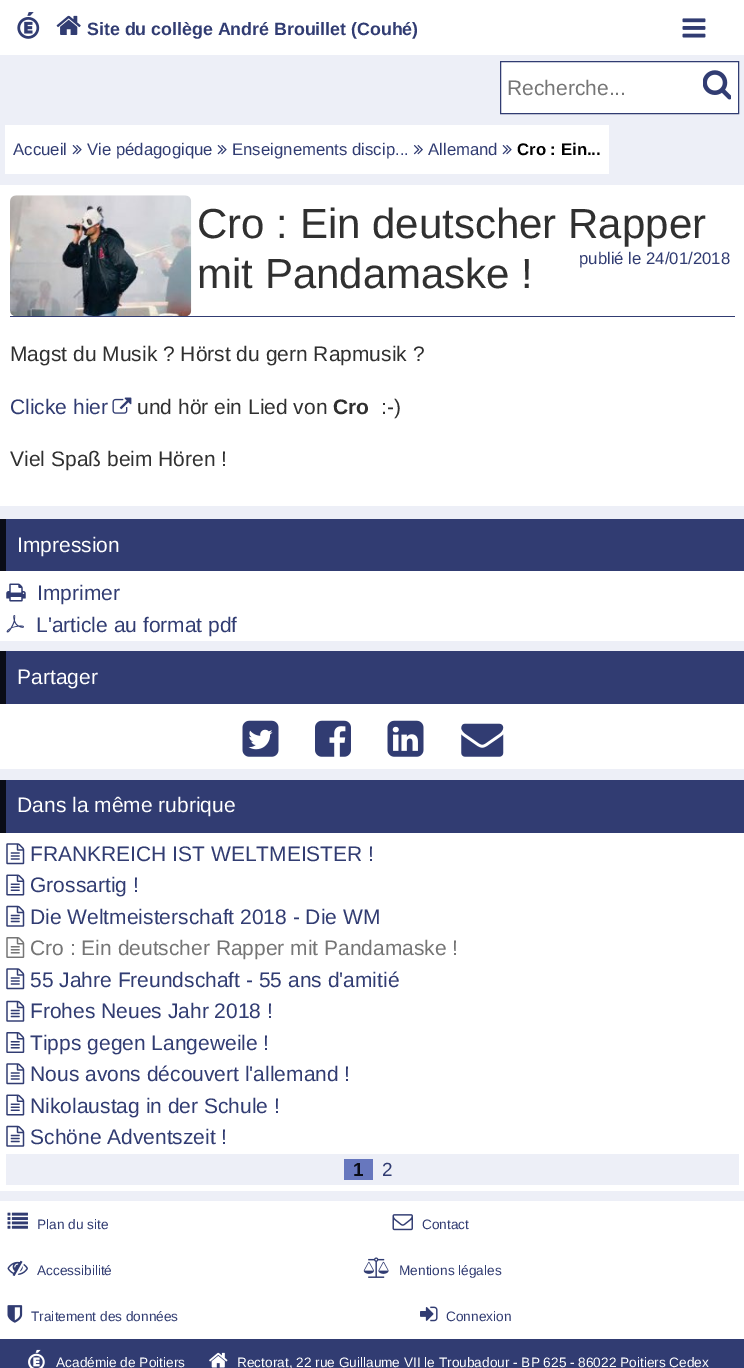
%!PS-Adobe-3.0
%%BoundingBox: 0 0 744 1368
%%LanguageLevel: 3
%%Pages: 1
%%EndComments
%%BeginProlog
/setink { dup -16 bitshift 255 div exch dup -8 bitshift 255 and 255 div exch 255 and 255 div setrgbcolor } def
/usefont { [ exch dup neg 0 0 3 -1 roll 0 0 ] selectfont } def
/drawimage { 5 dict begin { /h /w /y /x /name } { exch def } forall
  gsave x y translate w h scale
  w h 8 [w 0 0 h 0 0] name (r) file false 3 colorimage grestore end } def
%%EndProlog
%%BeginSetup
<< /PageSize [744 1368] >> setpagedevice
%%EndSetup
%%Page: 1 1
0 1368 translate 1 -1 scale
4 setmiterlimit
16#EDEFF7 setink
0 0 744 1368 rectfill
16#FFFFFF setink
0 0 744 55 rectfill
(img1.raw) 17 12 23 27 drawimage
(img2.raw) 56 15 25 20 drawimage
/LiberationSans-Bold 17.8 usefont
16#313C72 setink
87 35 moveto (Site du collège André Brouillet \(Couhé\)) show
(img3.raw) 682 18 24 20 drawimage
16#FFFFFF setink
500.5 61.5 moveto 738.5 61.5 lineto 738.5 113.5 lineto 500.5 113.5 lineto closepath gsave fill grestore
16#313C72 setink
stroke
/LiberationSans-Regular 21 usefont
16#757575 setink
507 95 moveto (Recherche...) show
(img4.raw) 703 70 28 30 drawimage
16#FFFFFF setink
5 125 604 49 rectfill
/LiberationSans-Regular 16.75 usefont
16#313C72 setink
13 155 moveto (Accueil) show
(img5.raw) 72 145 10 10 drawimage
87 155 moveto (Vie pédagogique) show
(img5.raw) 217 145 10 10 drawimage
232 155 moveto (Enseignements discip...) show
(img6.raw) 413 145 10 10 drawimage
428 155 moveto (Allemand) show
(img5.raw) 502 145 10 10 drawimage
/LiberationSans-Bold 16.75 usefont
16#000000 setink
517 155 moveto (Cro : Ein...) show
16#FFFFFF setink
0 185 744 321 rectfill
(img7.raw) 10 195 182 121 drawimage
/LiberationSans-Regular 42 usefont
16#303030 setink
197 238 moveto (Cro : Ein deutscher Rapper) show
197 288 moveto (mit Pandamaske !) show
/LiberationSans-Regular 16.75 usefont
16#313C72 setink
579 264 moveto (publié le 24/01/2018) show
10 316 725 1 rectfill
/LiberationSans-Regular 21 usefont
16#303030 setink
10 361 moveto (Magst du Musik ? Hörst du gern Rapmusik ?) show
16#313C72 setink
10 414 moveto (Clicke hier) show
(img8.raw) 112 397 20 17 drawimage
16#303030 setink
137 414 moveto (und hör ein Lied von) show
/LiberationSans-Bold 21 usefont
333 414 moveto (Cro) show
/LiberationSans-Regular 21 usefont
381 414 moveto (:-\)) show
10 466 moveto (Viel Spaß beim Hören !) show
[
    [0 571 744 70 16#FFFFFF]
    [6 519 738 52 16#313C72]
    [0 519 6 52 16#0A0C17]
] { aload pop setink rectfill } forall
16#FFFFFF setink
17 552 moveto (Impression) show
(img9.raw) 6 583 20 19 drawimage
16#313C72 setink
37 600 moveto (Imprimer) show
(img10.raw) 6 615 18 18 drawimage
36 632 moveto (L'article au format pdf) show
[
    [0 704 744 65 16#FFFFFF]
    [6 651 738 53 16#313C72]
    [0 651 6 53 16#0A0C17]
] { aload pop setink rectfill } forall
16#FFFFFF setink
17 684 moveto (Partager) show
(img11.raw) 242 720 37 37 drawimage
(img12.raw) 315 720 36 37 drawimage
(img13.raw) 387 720 37 37 drawimage
(img14.raw) 461 723 43 34 drawimage
[
    [0 833 744 358 16#FFFFFF]
    [6 780 738 53 16#313C72]
    [0 780 6 53 16#0A0C17]
] { aload pop setink rectfill } forall
16#FFFFFF setink
17 812 moveto (Dans la même rubrique) show
(img15.raw) 6 843 19 22 drawimage
16#313C72 setink
30 861 moveto (FRANKREICH IST WELTMEISTER !) show
(img16.raw) 6 874 19 22 drawimage
30 892 moveto (Grossartig !) show
(img17.raw) 6 905 19 22 drawimage
30 924 moveto (Die Weltmeisterschaft 2018 - Die WM) show
(img18.raw) 6 937 19 21 drawimage
16#757575 setink
30 955 moveto (Cro : Ein deutscher Rapper mit Pandamaske !) show
(img15.raw) 6 968 19 22 drawimage
16#313C72 setink
30 987 moveto (55 Jahre Freundschaft - 55 ans d'amitié) show
(img17.raw) 6 1000 19 22 drawimage
30 1018 moveto (Frohes Neues Jahr 2018 !) show
(img19.raw) 6 1032 19 21 drawimage
30 1050 moveto (Tipps gegen Langeweile !) show
(img15.raw) 6 1063 19 22 drawimage
30 1081 moveto (Nous avons découvert l'allemand !) show
(img16.raw) 6 1094 19 22 drawimage
30 1113 moveto (Nikolaustag in der Schule !) show
(img17.raw) 6 1125 19 22 drawimage
30 1144 moveto (Schöne Adventszeit !) show
16#EDEFF7 setink
6 1154 733 31 rectfill
16#6777BE setink
344 1159 29 21 rectfill
/LiberationSans-Bold 19 usefont
16#0A0C17 setink
353 1176 moveto (1) show
/LiberationSans-Regular 19 usefont
16#313C72 setink
382 1176 moveto (2) show
16#FFFFFF setink
0 1201 744 138 rectfill
(img20.raw) 7 1212 21 17 drawimage
/LiberationSans-Regular 13.65 usefont
16#313C72 setink
37 1229 moveto (Plan du site) show
(img21.raw) 392 1214 21 17 drawimage
422 1229 moveto (Contact) show
(img22.raw) 7 1260 21 16 drawimage
37 1275 moveto (Accessibilité) show
(img23.raw) 363 1257 26 21 drawimage
399 1275 moveto (Mentions légales) show
(img24.raw) 7 1305 16 18 drawimage
31 1321 moveto (Traitement des données) show
(img25.raw) 420 1306 18 16 drawimage
446 1321 moveto (Connexion) show
0 1339 744 29 rectfill
(img26.raw) 28 1349 17 19 drawimage
16#FFFFFF setink
56 1367 moveto (Académie de Poitiers) show
(img27.raw) 209 1352 19 16 drawimage
237 1367 moveto (Rectorat, 22 rue Guillaume VII le Troubadour - BP 625 - 86022 Poitiers Cedex) show
showpage
%%EOF
